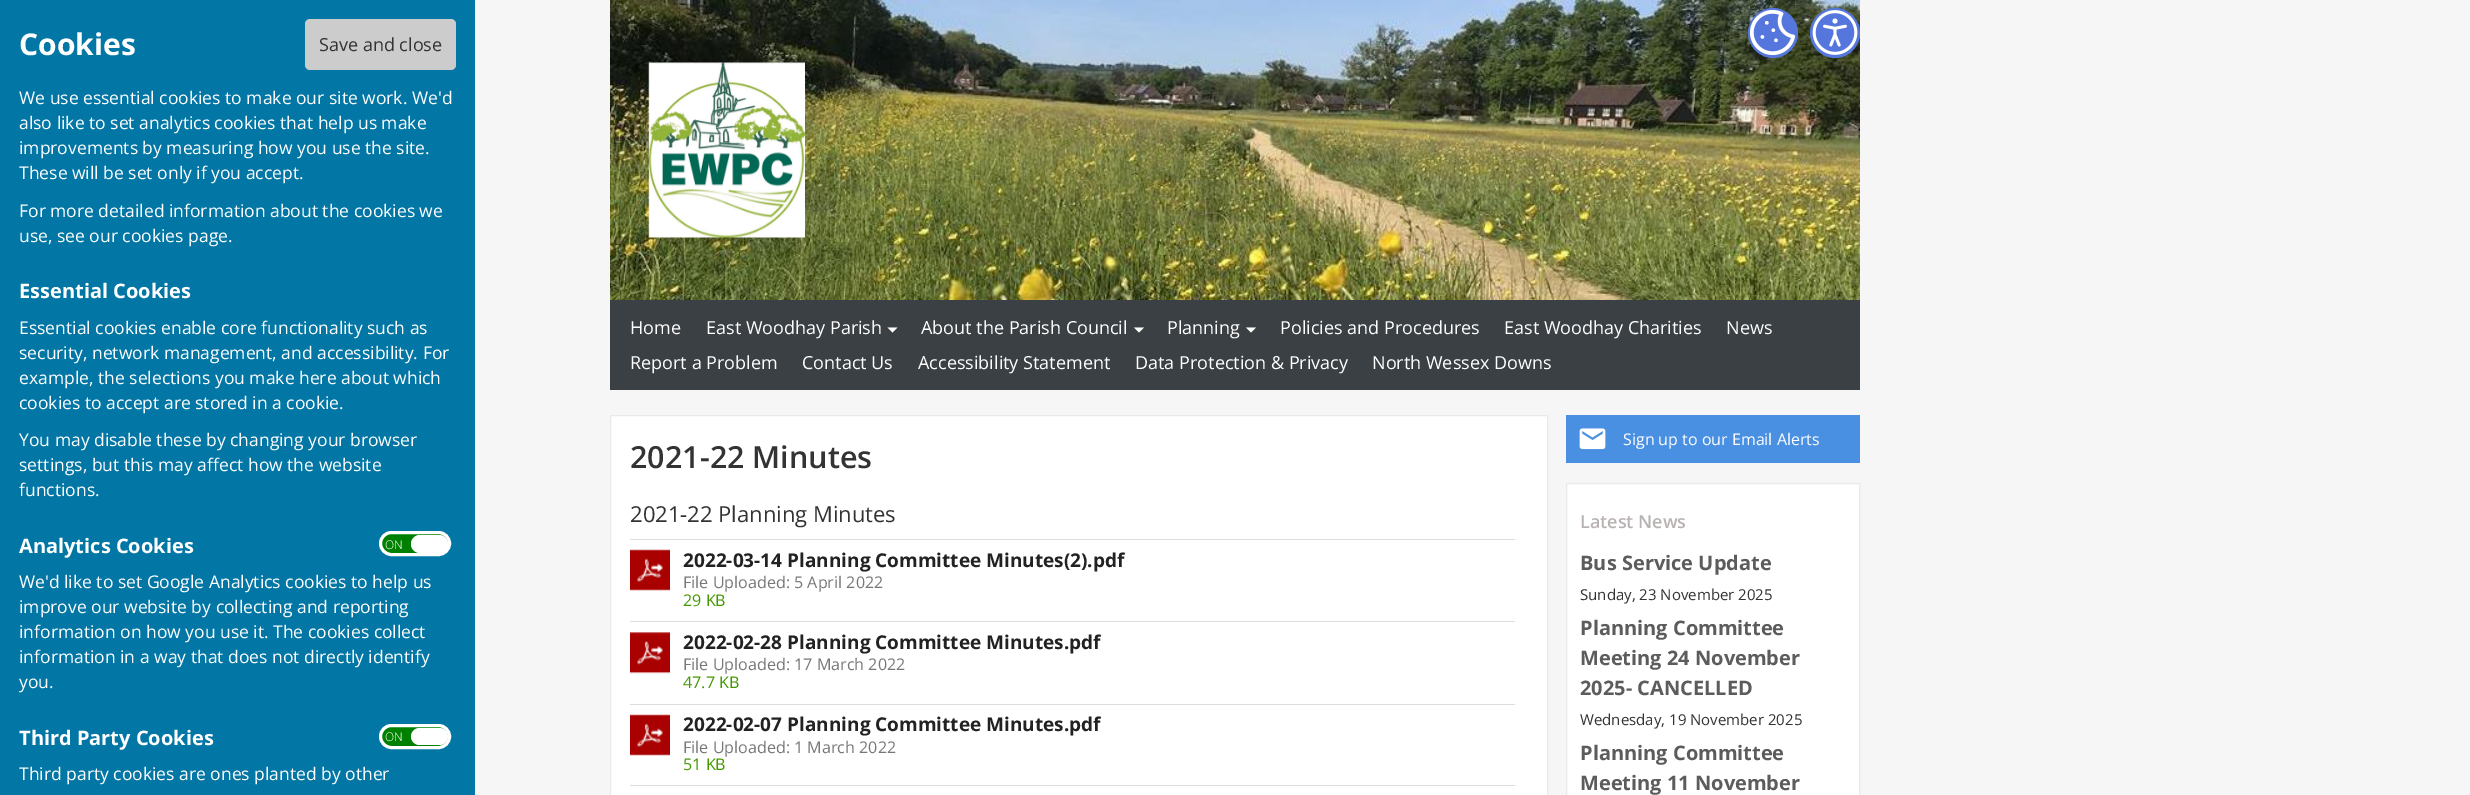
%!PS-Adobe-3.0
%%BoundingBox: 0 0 2470 795
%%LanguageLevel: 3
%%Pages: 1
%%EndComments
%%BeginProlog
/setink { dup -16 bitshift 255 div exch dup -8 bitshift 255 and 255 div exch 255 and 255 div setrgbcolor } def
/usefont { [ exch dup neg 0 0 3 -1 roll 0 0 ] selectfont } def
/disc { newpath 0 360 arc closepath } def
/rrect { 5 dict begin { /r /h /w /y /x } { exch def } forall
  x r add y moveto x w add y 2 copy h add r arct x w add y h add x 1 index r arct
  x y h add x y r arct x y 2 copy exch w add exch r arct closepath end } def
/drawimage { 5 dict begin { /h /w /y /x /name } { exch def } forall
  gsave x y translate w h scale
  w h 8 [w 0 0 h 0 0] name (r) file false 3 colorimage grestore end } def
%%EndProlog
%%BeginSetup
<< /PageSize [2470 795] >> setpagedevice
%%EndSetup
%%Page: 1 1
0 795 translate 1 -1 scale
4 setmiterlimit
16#F6F6F6 setink
0 0 2470 795 rectfill
16#0276A5 setink
0 0 475 795 rectfill
/OpenSans-Bold 30 usefont
16#FFFFFF setink
19 55 moveto (Cookies) show
16#CCCCCC setink
305 19 151 51 5 rrect fill
/OpenSans-Regular 18 usefont
16#333333 setink
319 51 moveto (Save and close) show
/OpenSans-Regular 17.5 usefont
16#FFFFFF setink
[
    [(We use essential cookies to make our site work. We'd) 19 104]
    [(also like to set analytics cookies that help us make) 19 129]
    [(improvements by measuring how you use the site.) 19 154]
    [(These will be set only if you accept.) 19 179]
    [(For more detailed information about the cookies we) 19 217]
    [(use, see our cookies page.) 19 242]
] { aload pop moveto show } forall
/OpenSans-Bold 20 usefont
19 298 moveto (Essential Cookies) show
/OpenSans-Regular 17.5 usefont
[
    [(Essential cookies enable core functionality such as) 19 334]
    [(security, network management, and accessibility. For) 19 359]
    [(example, the selections you make here about which) 19 384]
    [(cookies to accept are stored in a cookie.) 19 409]
    [(You may disable these by changing your browser) 19 446]
    [(settings, but this may affect how the website) 19 471]
    [(functions.) 19 496]
] { aload pop moveto show } forall
/OpenSans-Bold 20 usefont
19 553 moveto (Analytics Cookies) show
16#008000 setink
380.5 532.5 69 22 11 rrect gsave fill grestore
16#FFFFFF setink
3 setlinewidth
stroke
/OpenSans-Light 12 usefont
385 549 moveto (ON) show
411 535 37 18 9 rrect fill
/OpenSans-Regular 17.5 usefont
[
    [(We'd like to set Google Analytics cookies to help us) 19 588]
    [(improve our website by collecting and reporting) 19 613]
    [(information on how you use it. The cookies collect) 19 638]
    [(information in a way that does not directly identify) 19 663]
    [(you.) 19 688]
] { aload pop moveto show } forall
/OpenSans-Bold 20 usefont
19 745 moveto (Third Party Cookies) show
16#008000 setink
380.5 725.5 69 22 11 rrect gsave fill grestore
16#FFFFFF setink
stroke
/OpenSans-Light 12 usefont
385 741 moveto (ON) show
411 728 37 17 8.5 rrect fill
/OpenSans-Regular 17.5 usefont
19 780 moveto (Third party cookies are ones planted by other) show
(img1.raw) 610 0 1250 300 drawimage
16#5577DD setink
1773 33 25 disc fill
(img2.raw) 1749 9 47 47 drawimage
1835 33 25 disc fill
(img3.raw) 1812 10 46 45 drawimage
(img4.raw) 648 62 157 176 drawimage
16#3B4044 setink
610 300 1250 90 rectfill
/OpenSans-Regular 18 usefont
16#FFFFFF setink
630 334 moveto (Home) show
706 334 moveto (East Woodhay Parish) show
887.5 327.5 moveto 897.5 327.5 lineto 892.5 332.5 lineto closepath fill
921 334 moveto (About the Parish Council) show
1134 327.5 moveto 1144 327.5 lineto 1139 332.5 lineto closepath fill
1167 334 moveto (Planning) show
1246 327.5 moveto 1256 327.5 lineto 1251 332.5 lineto closepath fill
[
    [(Policies and Procedures) 1280 334]
    [(East Woodhay Charities) 1504 334]
    [(News) 1726 334]
    [(Report a Problem) 630 369]
    [(Contact Us) 802 369]
    [(Accessibility Statement) 918 369]
    [(Data Protection & Privacy) 1135 369]
    [(North Wessex Downs) 1372 369]
] { aload pop moveto show } forall
610.5 415.5 moveto 1547.5 415.5 lineto 1547.5 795.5 lineto 610.5 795.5 lineto closepath gsave fill grestore
16#EAEAEA setink
1 setlinewidth
stroke
/OpenSans-SemiBold 30.5 usefont
16#333333 setink
630 468 moveto (2021-22 Minutes) show
/OpenSans-Regular 22 usefont
630 522 moveto (2021-22 Planning Minutes) show
(img5.raw) 630 549 40 42 drawimage
16#DDDDDD setink
630 539 885 1 rectfill
/OpenSans-Bold 19 usefont
16#222222 setink
683 567 moveto (2022-03-14 Planning Committee Minutes\(2\).pdf) show
/OpenSans-Regular 16.1 usefont
16#777777 setink
683 588 moveto (File Uploaded: 5 April 2022) show
16#449900 setink
683 606 moveto (29 KB) show
(img6.raw) 630 632 40 42 drawimage
16#DDDDDD setink
630 621 885 1 rectfill
/OpenSans-Bold 19 usefont
16#222222 setink
683 649 moveto (2022-02-28 Planning Committee Minutes.pdf) show
/OpenSans-Regular 16.1 usefont
16#777777 setink
683 670 moveto (File Uploaded: 17 March 2022) show
16#449900 setink
683 688 moveto (47.7 KB) show
(img5.raw) 630 714 40 42 drawimage
16#DDDDDD setink
630 704 885 1 rectfill
/OpenSans-Bold 19 usefont
16#222222 setink
683 731 moveto (2022-02-07 Planning Committee Minutes.pdf) show
/OpenSans-Regular 16.1 usefont
16#777777 setink
683 753 moveto (File Uploaded: 1 March 2022) show
16#449900 setink
683 770 moveto (51 KB) show
16#DDDDDD setink
630 785 885 1 rectfill
16#4A90E2 setink
1566 415 294 48 rectfill
(img7.raw) 1579 428 27 22 drawimage
/OpenSans-Regular 16 usefont
16#FFFFFF setink
1623 445 moveto (Sign up to our Email Alerts) show
1566.5 483.5 moveto 1859.5 483.5 lineto 1859.5 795.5 lineto 1566.5 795.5 lineto closepath gsave fill grestore
16#EAEAEA setink
stroke
/OpenSans-SemiBold 18 usefont
16#B9B2B2 setink
1580 528 moveto (Latest News) show
/OpenSans-Bold 20 usefont
16#5C5C5C setink
1580 570 moveto (Bus Service Update) show
/OpenSans-Regular 15 usefont
16#333333 setink
1580 600 moveto (Sunday, 23 November 2025) show
/OpenSans-Bold 20 usefont
16#5C5C5C setink
[
    [(Planning Committee) 1580 635]
    [(Meeting 24 November) 1580 665]
    [(2025- CANCELLED) 1580 695]
] { aload pop moveto show } forall
/OpenSans-Regular 15 usefont
16#333333 setink
1580 725 moveto (Wednesday, 19 November 2025) show
/OpenSans-Bold 20 usefont
16#5C5C5C setink
1580 760 moveto (Planning Committee) show
1580 790 moveto (Meeting 11 November) show
showpage
%%EOF
